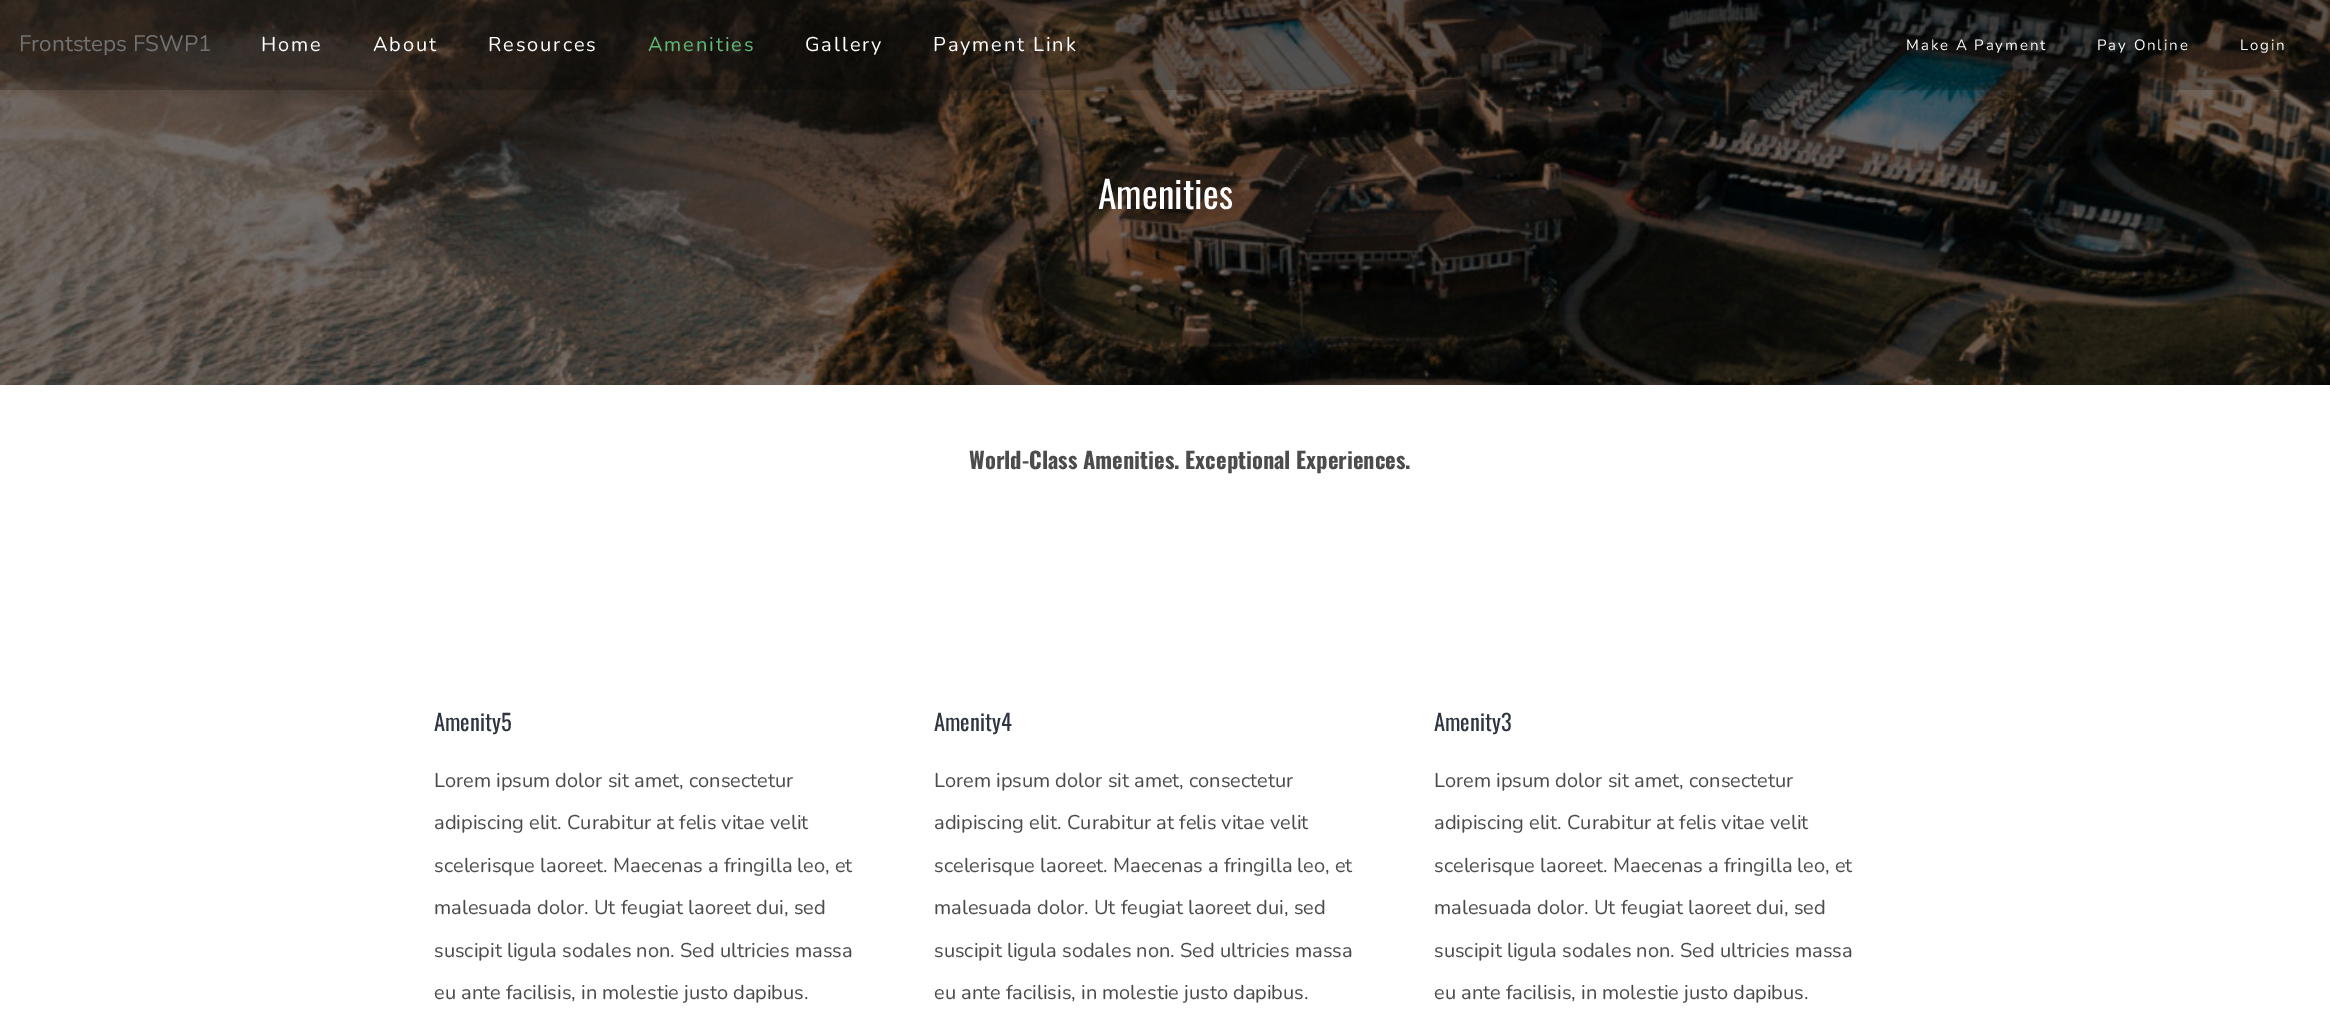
%!PS-Adobe-3.0
%%BoundingBox: 0 0 2330 1029
%%LanguageLevel: 3
%%Pages: 1
%%EndComments
%%BeginProlog
/setink { dup -16 bitshift 255 div exch dup -8 bitshift 255 and 255 div exch 255 and 255 div setrgbcolor } def
/usefont { [ exch dup neg 0 0 3 -1 roll 0 0 ] selectfont } def
/setalpha { dup .setfillconstantalpha .setstrokeconstantalpha } def
/drawimage { 5 dict begin { /h /w /y /x /name } { exch def } forall
  gsave x y translate w h scale
  w h 8 [w 0 0 h 0 0] name (r) file false 3 colorimage grestore end } def
%%EndProlog
%%BeginSetup
<< /PageSize [2330 1029] /PageUsesTransparency true >> setpagedevice
%%EndSetup
%%Page: 1 1
0 .pushpdf14devicefilter
0 1029 translate 1 -1 scale
4 setmiterlimit
16#FFFFFF setink
0 0 2330 1029 rectfill
16#000000 setink
0 0 2330 385 rectfill
(img1.raw) 0 0 2330 385 drawimage
0.2 setalpha
0 0 2330 90 rectfill
/Nunito-Regular 22.5 usefont
1 setalpha
16#727272 setink
19 51 moveto (Frontsteps FSWP1) show
/Nunito-Regular 20 usefont
16#FFFFFF setink
261 51 moveto 1.9 0 (Home) ashow
373 51 moveto 1.9 0 (About) ashow
488 51 moveto 1.9 0 (Resources) ashow
16#5DBC7A setink
648 51 moveto 1.9 0 (Amenities) ashow
16#FFFFFF setink
805 51 moveto 1.9 0 (Gallery) ashow
933 51 moveto 1.9 0 (Payment Link) ashow
/Nunito-Regular 15 usefont
1906 50 moveto 1.9 0 (Make A Payment) ashow
2097 50 moveto 1.9 0 (Pay Online) ashow
2240 50 moveto 1.9 0 (Login) ashow
/Oswald-Regular 37.5 usefont
1098 209 moveto (Amenities) show
/Oswald-Bold 22.5 usefont
16#4C4C4C setink
969 469 moveto (World-Class Amenities. Exceptional Experiences.) show
/Oswald-Regular 22.5 usefont
16#2F3542 setink
434 731 moveto (Amenity5) show
/Nunito-Regular 20 usefont
16#4C4C4C setink
[
    [(Lorem ipsum dolor sit amet, consectetur) 434 787]
    [(adipiscing elit. Curabitur at felis vitae velit) 434 829]
    [(scelerisque laoreet. Maecenas a fringilla leo, et) 434 872]
    [(malesuada dolor. Ut feugiat laoreet dui, sed) 434 914]
    [(suscipit ligula sodales non. Sed ultricies massa) 434 957]
    [(eu ante facilisis, in molestie justo dapibus.) 434 999]
] { aload pop moveto show } forall
/Oswald-Regular 22.5 usefont
16#2F3542 setink
934 731 moveto (Amenity4) show
/Nunito-Regular 20 usefont
16#4C4C4C setink
[
    [(Lorem ipsum dolor sit amet, consectetur) 934 787]
    [(adipiscing elit. Curabitur at felis vitae velit) 934 829]
    [(scelerisque laoreet. Maecenas a fringilla leo, et) 934 872]
    [(malesuada dolor. Ut feugiat laoreet dui, sed) 934 914]
    [(suscipit ligula sodales non. Sed ultricies massa) 934 957]
    [(eu ante facilisis, in molestie justo dapibus.) 934 999]
] { aload pop moveto show } forall
/Oswald-Regular 22.5 usefont
16#2F3542 setink
1434 731 moveto (Amenity3) show
/Nunito-Regular 20 usefont
16#4C4C4C setink
[
    [(Lorem ipsum dolor sit amet, consectetur) 1434 787]
    [(adipiscing elit. Curabitur at felis vitae velit) 1434 829]
    [(scelerisque laoreet. Maecenas a fringilla leo, et) 1434 872]
    [(malesuada dolor. Ut feugiat laoreet dui, sed) 1434 914]
    [(suscipit ligula sodales non. Sed ultricies massa) 1434 957]
    [(eu ante facilisis, in molestie justo dapibus.) 1434 999]
] { aload pop moveto show } forall
.poppdf14devicefilter showpage
%%EOF
